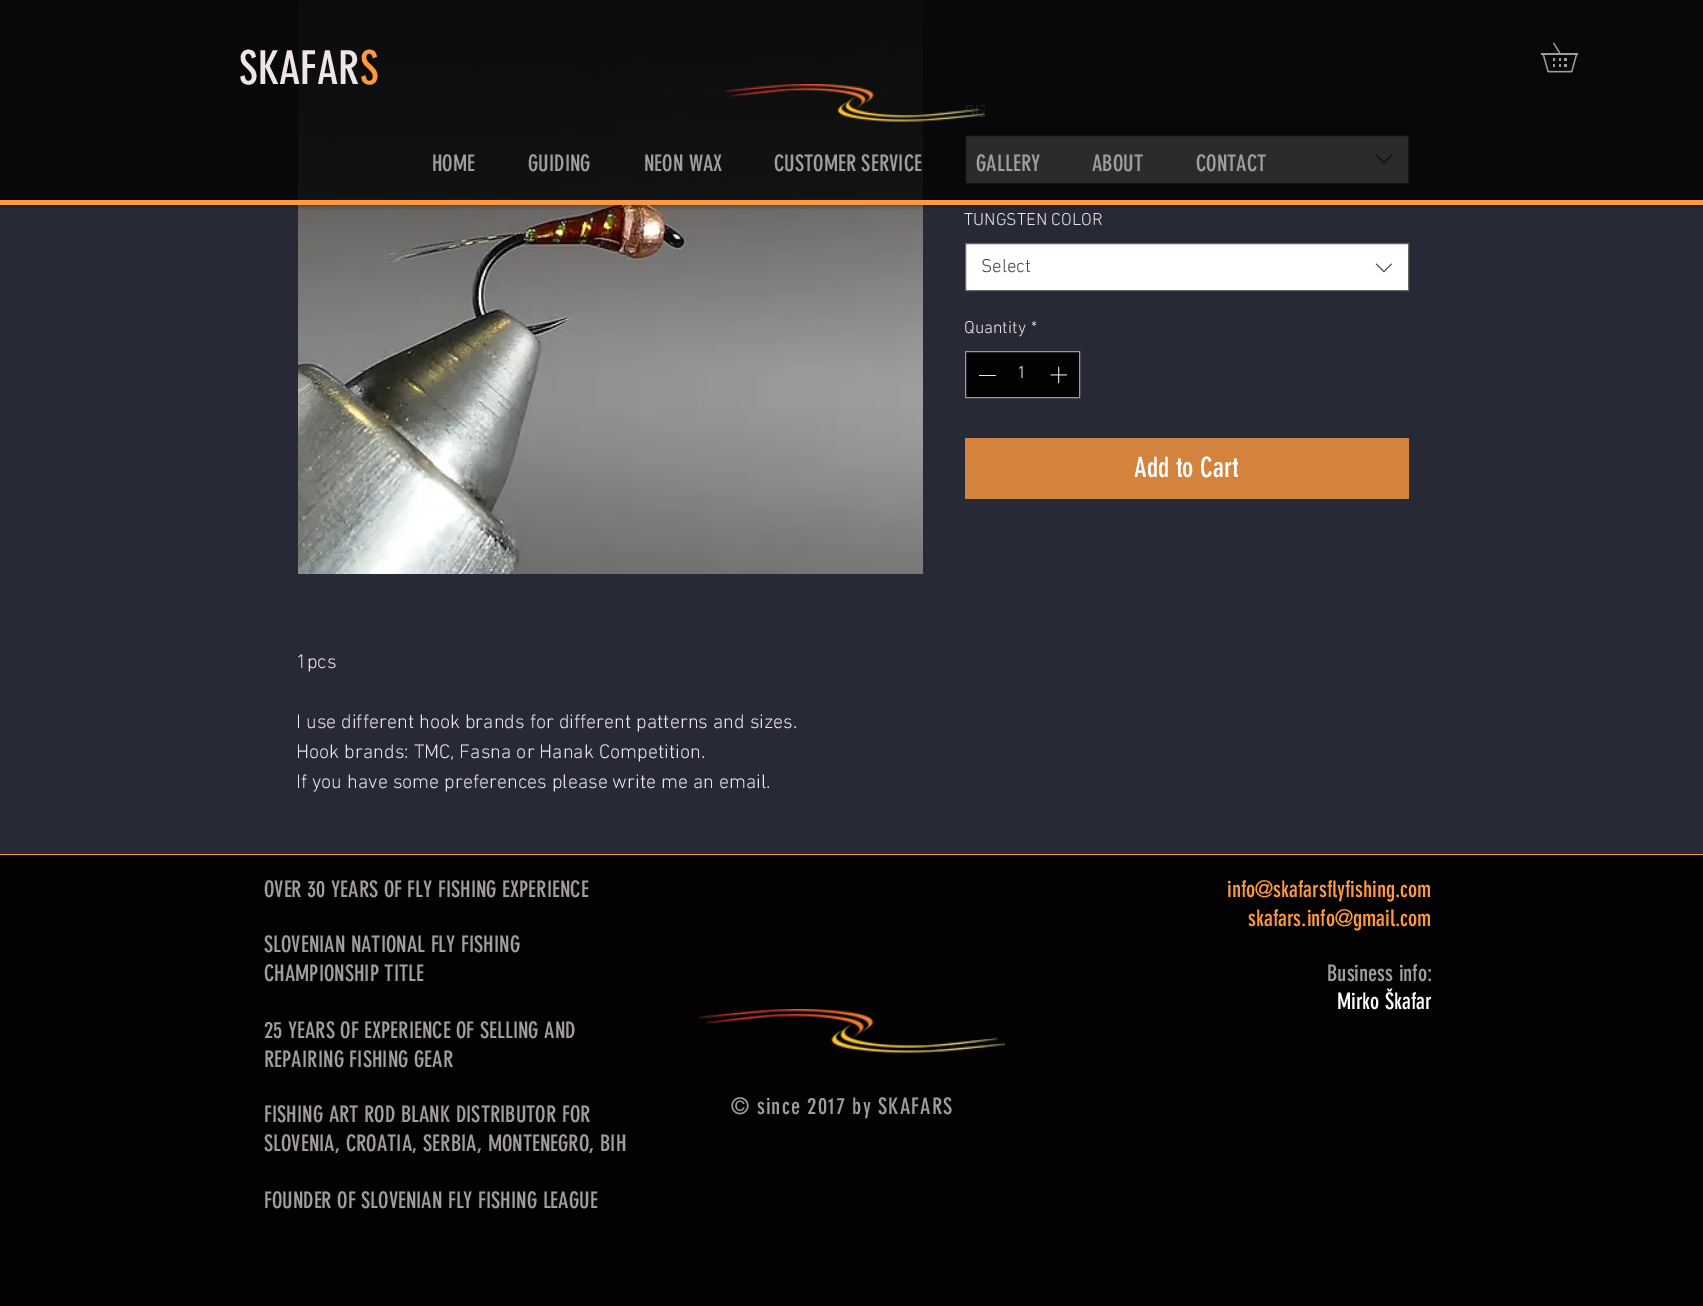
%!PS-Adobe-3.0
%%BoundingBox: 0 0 1703 1306
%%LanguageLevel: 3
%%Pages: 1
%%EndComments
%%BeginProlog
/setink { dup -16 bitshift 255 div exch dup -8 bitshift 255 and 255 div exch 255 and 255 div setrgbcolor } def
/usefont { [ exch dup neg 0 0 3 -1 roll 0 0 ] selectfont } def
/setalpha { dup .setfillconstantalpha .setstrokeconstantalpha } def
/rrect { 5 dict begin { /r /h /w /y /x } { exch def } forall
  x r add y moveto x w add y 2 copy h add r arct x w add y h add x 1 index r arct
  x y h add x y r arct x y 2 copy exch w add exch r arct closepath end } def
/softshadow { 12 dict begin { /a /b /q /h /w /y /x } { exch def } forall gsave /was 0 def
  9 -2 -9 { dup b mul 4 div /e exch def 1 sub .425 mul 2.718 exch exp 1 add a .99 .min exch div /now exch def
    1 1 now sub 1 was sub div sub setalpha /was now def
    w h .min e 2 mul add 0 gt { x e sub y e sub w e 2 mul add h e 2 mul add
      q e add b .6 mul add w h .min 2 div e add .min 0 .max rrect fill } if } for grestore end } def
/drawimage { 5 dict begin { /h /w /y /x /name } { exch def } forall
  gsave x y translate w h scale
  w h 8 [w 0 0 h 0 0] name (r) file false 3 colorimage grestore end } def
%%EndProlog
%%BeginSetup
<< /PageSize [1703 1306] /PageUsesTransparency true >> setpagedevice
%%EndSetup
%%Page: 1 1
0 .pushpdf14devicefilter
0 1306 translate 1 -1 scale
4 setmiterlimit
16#020202 setink
0 0 1703 1306 rectfill
16#272936 setink
0 0 1703 854 rectfill
16#FFFFFF setink
965.5 135.5 moveto 1408.5 135.5 lineto 1408.5 183.5 lineto 965.5 183.5 lineto closepath gsave fill grestore
16#666666 setink
stroke
(img3.raw) 1375 154 18 10 drawimage
(img6.raw) 298 0 625 574 drawimage
gsave
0 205 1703 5 rectclip
16#000000 setink
0 0 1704 205 0 3 0.5 softshadow
grestore
0.84 setalpha
16#020202 setink
0 0 1703 200 rectfill
1 setalpha
16#FF9940 setink
0 200 1703 5 rectfill
/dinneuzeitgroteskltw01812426-Regular 46 usefont
16#EEE6E6 setink
239 84 moveto (SKAFAR) show
16#FF9940 setink
360 84 moveto (S) show
(img1.raw) 726 84 259 38 drawimage
/dinneuzeitgroteskltw01812426-Regular 22.5 usefont
16#A29C9C setink
[
    [(HOME) 432 171]
    [(GUIDING) 528 171]
    [(NEON WAX) 644 171]
    [(CUSTOMER SERVICE) 774 171]
    [(GALLERY) 976 171]
    [(ABOUT) 1092 171]
    [(CONTACT) 1196 171]
] { aload pop moveto show } forall
(img2.raw) 1541 42 37 31 drawimage
/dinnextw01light-Light 17.5 usefont
16#EEE6E6 setink
964 225 moveto (TUNGSTEN COLOR) show
16#FFFFFF setink
965.5 243.5 moveto 1408.5 243.5 lineto 1408.5 290.5 lineto 965.5 290.5 lineto closepath gsave fill grestore
16#666666 setink
stroke
/dinnextw01light-Light 19 usefont
16#444444 setink
981 272 moveto (Select) show
(img4.raw) 1375 263 18 10 drawimage
/dinnextw01light-Light 17.5 usefont
16#EEE6E6 setink
964 333 moveto (Quantity) show
1031 333 moveto (*) show
16#020202 setink
965.5 351.5 moveto 1079.5 351.5 lineto 1079.5 397.5 lineto 965.5 397.5 lineto closepath gsave fill grestore
16#9A9A9A setink
stroke
16#EEE6E6 setink
979 375 17 1 rectfill
1017 378 moveto (1) show
(img5.raw) 1050 366 17 18 drawimage
16#D4833E setink
965 438 444 61 rectfill
/dinneuzeitgroteskltw01812426-Regular 27.5 usefont
16#FFFFFF setink
1134 477 moveto (Add to Cart) show
/dinnextw01light-Light 20 usefont
16#EEE6E6 setink
[
    [(1pcs) 296 668]
    [(I use different hook brands for different patterns and sizes.) 296 728]
    [(Hook brands: TMC, Fasna or Hanak Competition.) 296 758]
    [(If you have some preferences please write me an email.) 296 788]
] { aload pop moveto show } forall
16#FF9940 setink
0 854 1703 1 rectfill
/dinneuzeitgroteskltw01812426-Regular 22.5 usefont
16#A29C9C setink
[
    [(OVER 30 YEARS OF FLY FISHING EXPERIENCE) 264 897]
    [(SLOVENIAN NATIONAL FLY FISHING) 264 952]
    [(CHAMPIONSHIP TITLE) 264 981]
    [(25 YEARS OF EXPERIENCE OF SELLING AND) 264 1038]
    [(REPAIRING FISHING GEAR) 264 1067]
    [(FISHING ART ROD BLANK DISTRIBUTOR FOR) 264 1122]
    [(SLOVENIA, CROATIA, SERBIA, MONTENEGRO, BIH) 264 1151]
    [(FOUNDER OF SLOVENIAN FLY FISHING LEAGUE) 264 1208]
] { aload pop moveto show } forall
16#FF9940 setink
1227 897 moveto (info@skafarsflyfishing.com) show
1248 926 moveto (skafars.info@gmail.com) show
16#A29C9C setink
1327 981 moveto (Business info:) show
16#FFFFFF setink
1337 1009 moveto (Mirko Škafar) show
(img7.raw) 699 1009 306 44 drawimage
16#A29C9C setink
731 1114 moveto 1.1 0 (© since 2017 by SKAFARS) ashow
.poppdf14devicefilter showpage
%%EOF
